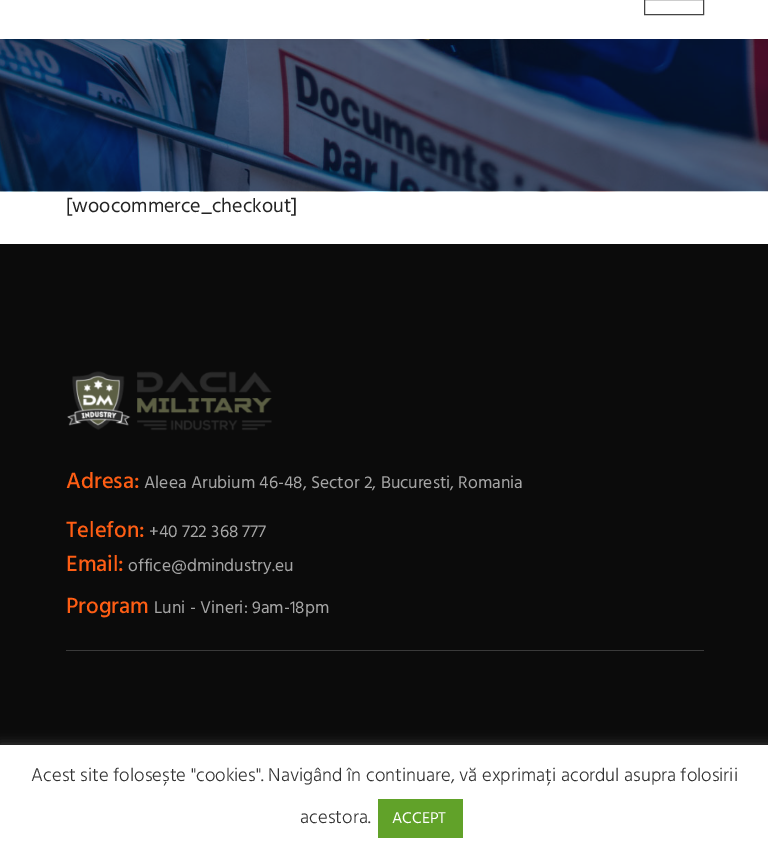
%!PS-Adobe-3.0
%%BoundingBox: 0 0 768 858
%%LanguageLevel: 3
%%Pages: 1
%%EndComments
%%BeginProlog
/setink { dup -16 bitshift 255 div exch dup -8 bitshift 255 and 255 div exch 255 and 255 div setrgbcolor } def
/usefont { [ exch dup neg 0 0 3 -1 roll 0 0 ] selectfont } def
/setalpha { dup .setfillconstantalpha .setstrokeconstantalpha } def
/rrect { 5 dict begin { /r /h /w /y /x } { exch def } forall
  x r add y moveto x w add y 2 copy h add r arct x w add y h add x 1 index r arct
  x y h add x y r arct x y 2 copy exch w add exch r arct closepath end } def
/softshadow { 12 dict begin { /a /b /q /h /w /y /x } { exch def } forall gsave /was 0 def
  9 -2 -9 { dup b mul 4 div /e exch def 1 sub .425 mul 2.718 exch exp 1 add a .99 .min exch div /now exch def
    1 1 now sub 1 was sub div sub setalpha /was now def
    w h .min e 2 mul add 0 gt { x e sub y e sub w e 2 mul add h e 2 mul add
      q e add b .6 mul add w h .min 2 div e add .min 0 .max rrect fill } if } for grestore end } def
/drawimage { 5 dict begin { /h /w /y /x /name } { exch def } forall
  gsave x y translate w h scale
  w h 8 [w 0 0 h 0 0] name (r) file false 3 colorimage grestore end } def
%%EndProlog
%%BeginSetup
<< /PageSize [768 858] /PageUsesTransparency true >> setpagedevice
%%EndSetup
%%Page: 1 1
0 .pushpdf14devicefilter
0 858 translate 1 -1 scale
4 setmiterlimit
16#FFFFFF setink
0 0 768 858 rectfill
(img1.raw) 0 39 768 153 drawimage
16#000000 setink
5 10 759 29 0 7.5 0.1 softshadow
16#FFFFFF setink
0 0 768 39 rectfill
16#444444 setink
644.5 -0.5 59 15 rectstroke
/Hind-Regular 20 usefont
16#242424 setink
66 212 moveto ([woocommerce_checkout]) show
16#0B0B0B setink
0 244 768 501 rectfill
(img2.raw) 67 371 205 60 drawimage
/Hind-Medium 22.5 usefont
16#FF5E14 setink
66 488 moveto (Adresa:) show
/Hind-Regular 17.5 usefont
16#A5A5A5 setink
144 488 moveto (Aleea Arubium 46-48, Sector 2, Bucuresti, Romania) show
/Hind-Medium 22.5 usefont
16#FF5E14 setink
66 537 moveto (Telefon:) show
/Hind-Regular 17.5 usefont
16#A5A5A5 setink
149 537 moveto (+40 722 368 777) show
/Hind-Medium 22.5 usefont
16#FF5E14 setink
66 571 moveto (Email:) show
/Hind-Regular 17.5 usefont
16#A5A5A5 setink
128 571 moveto (office@dmindustry.eu) show
/Hind-Medium 22.5 usefont
16#FF5E14 setink
66 613 moveto (Program) show
/Hind-Regular 17.5 usefont
16#A5A5A5 setink
154 613 moveto (Luni - Vineri: 9am-18pm) show
16#3A3A3A setink
66 650 638 1 rectfill
16#ACABAB setink
0 744 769 114 0 6 0.3 softshadow
16#FFFFFF setink
0 745 768 113 rectfill
/Hind-Light 18.75 usefont
16#333333 setink
31 781 moveto (Acest site folosește "cookies". Navigând în continuare, vă exprimați acordul asupra folosirii) show
300 823 moveto (acestora.) show
16#61A229 setink
378 799 85 39 rectfill
/Hind-Regular 16 usefont
16#FFFFFF setink
392 823 moveto (ACCEPT) show
.poppdf14devicefilter showpage
%%EOF
